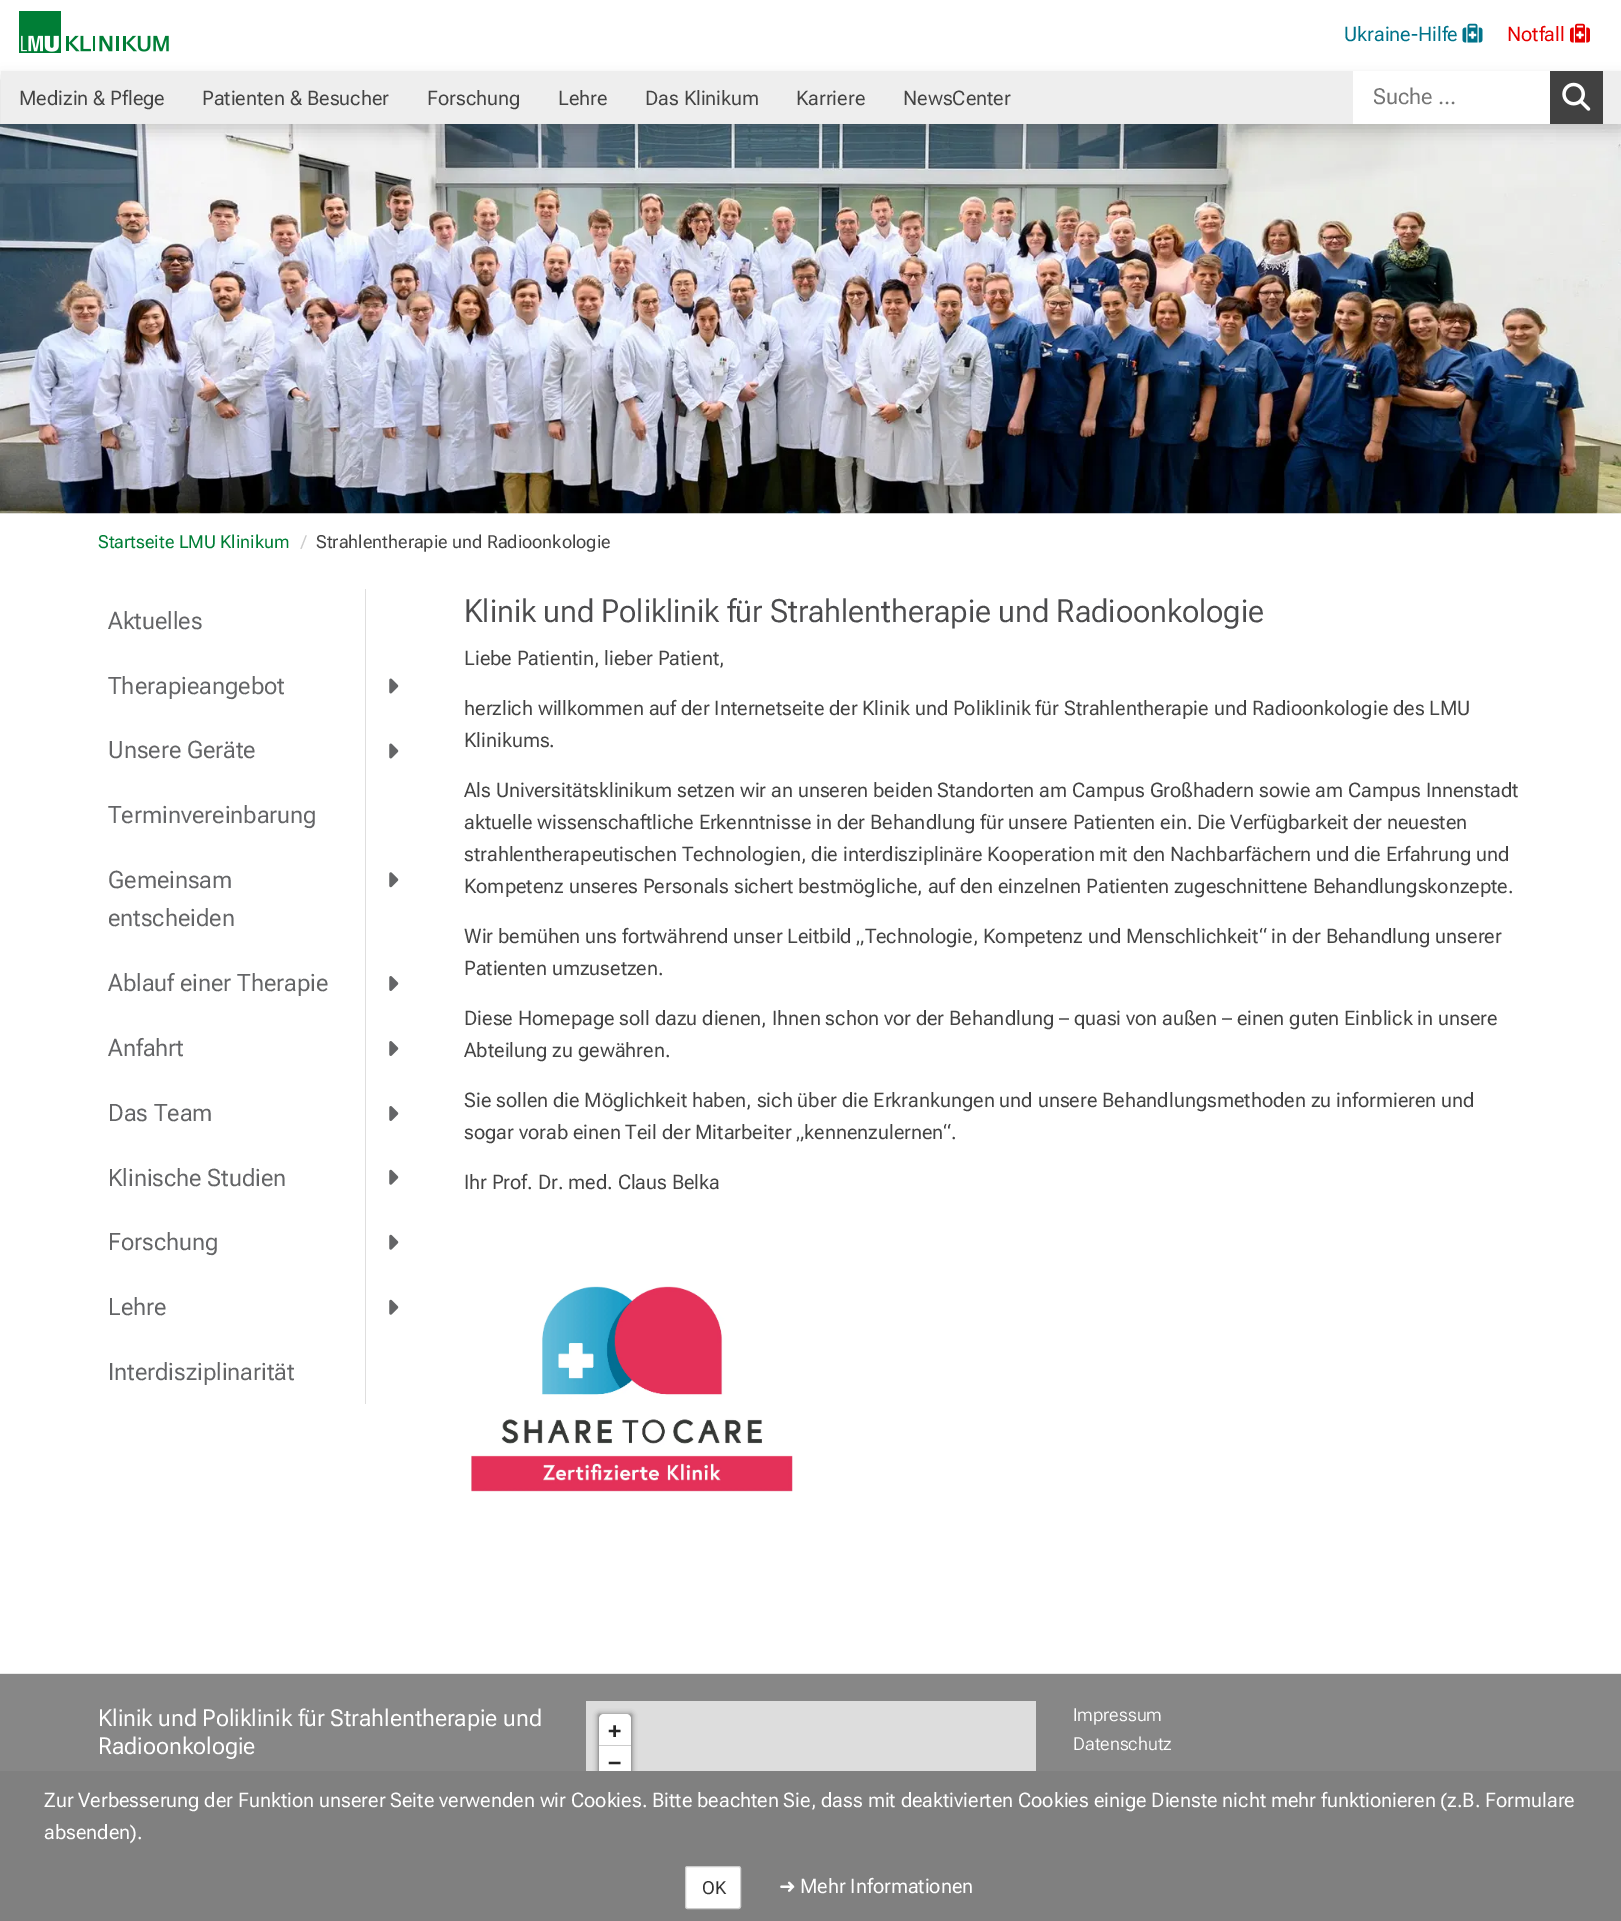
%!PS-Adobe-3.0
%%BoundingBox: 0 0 1621 1921
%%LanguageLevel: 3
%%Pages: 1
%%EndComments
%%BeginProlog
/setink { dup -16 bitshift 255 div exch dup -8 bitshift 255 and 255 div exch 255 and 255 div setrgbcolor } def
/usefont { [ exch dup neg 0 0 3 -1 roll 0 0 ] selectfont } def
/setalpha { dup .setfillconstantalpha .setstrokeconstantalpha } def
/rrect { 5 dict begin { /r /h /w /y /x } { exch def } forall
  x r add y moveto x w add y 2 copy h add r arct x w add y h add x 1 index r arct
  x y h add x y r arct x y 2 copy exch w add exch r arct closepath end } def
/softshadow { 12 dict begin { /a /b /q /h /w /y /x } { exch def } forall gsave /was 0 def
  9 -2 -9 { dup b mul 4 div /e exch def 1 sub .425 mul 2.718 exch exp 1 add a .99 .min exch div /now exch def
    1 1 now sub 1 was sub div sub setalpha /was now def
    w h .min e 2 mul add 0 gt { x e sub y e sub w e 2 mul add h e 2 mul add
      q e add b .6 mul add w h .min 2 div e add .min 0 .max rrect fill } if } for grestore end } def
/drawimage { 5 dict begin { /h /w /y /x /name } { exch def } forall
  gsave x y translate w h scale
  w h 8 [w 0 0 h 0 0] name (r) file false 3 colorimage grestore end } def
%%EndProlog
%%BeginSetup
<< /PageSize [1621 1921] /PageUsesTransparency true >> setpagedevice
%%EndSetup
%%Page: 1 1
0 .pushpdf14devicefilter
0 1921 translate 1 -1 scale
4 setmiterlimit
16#FFFFFF setink
0 0 1621 1921 rectfill
(img1.raw) 19 11 150 42 drawimage
/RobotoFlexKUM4-Italic 20 usefont
16#00738A setink
1344 41 moveto (Ukraine-Hilfe) show
(img2.raw) 1462 23 21 20 drawimage
16#E60000 setink
1507 41 moveto (Notfall) show
(img3.raw) 1570 23 20 20 drawimage
(img5.raw) 0 124 1621 390 drawimage
16#000000 setink
1 79 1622 52 0 7.5 0.17 softshadow
16#EEEEEE setink
1 71 1620 53 rectfill
16#444444 setink
[
    [(Medizin & Pflege) 19 105]
    [(Patienten & Besucher) 202 105]
    [(Forschung) 427 105]
    [(Lehre) 558 105]
    [(Das Klinikum) 645 105]
    [(Karriere) 796 105]
    [(NewsCenter) 903 105]
] { aload pop moveto show } forall
16#FFFFFF setink
1353 71 197 53 rectfill
/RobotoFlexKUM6-Italic 22 usefont
16#757575 setink
1373 104 moveto (Suche ...) show
16#414141 setink
1550 71 53 53 rectfill
(img4.raw) 1562 82 29 29 drawimage
16#EAEAEA setink
0 1673 1621 1 rectfill
/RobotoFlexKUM-Italic 18 usefont
16#007E36 setink
98 548 moveto (Startseite LMU Klinikum) show
16#CCCCCC setink
301 548 moveto (/) show
16#444444 setink
316 548 moveto (Strahlentherapie und Radioonkologie) show
16#DFDEDE setink
365 589 1 815 rectfill
/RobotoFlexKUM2-Italic 24 usefont
16#646567 setink
108 629 moveto (Aktuelles) show
108 694 moveto (Therapieangebot) show
(img6.raw) 389 678 10 16 drawimage
108 758 moveto (Unsere Geräte) show
(img6.raw) 389 743 10 16 drawimage
[
    [(Terminvereinbarung) 108 823]
    [(Gemeinsam) 108 888]
    [(entscheiden) 108 926]
] { aload pop moveto show } forall
(img7.raw) 389 872 10 16 drawimage
108 991 moveto (Ablauf einer Therapie) show
(img8.raw) 389 976 10 15 drawimage
108 1056 moveto (Anfahrt) show
(img8.raw) 389 1041 10 15 drawimage
108 1121 moveto (Das Team) show
(img8.raw) 389 1106 10 15 drawimage
108 1186 moveto (Klinische Studien) show
(img9.raw) 389 1169 10 16 drawimage
108 1250 moveto (Forschung) show
(img9.raw) 389 1234 10 16 drawimage
108 1315 moveto (Lehre) show
(img9.raw) 389 1299 10 16 drawimage
108 1380 moveto (Interdisziplinarität) show
/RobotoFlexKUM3-Italic 32 usefont
16#4B4B4D setink
464 622 moveto (Klinik und Poliklinik für Strahlentherapie und Radioonkologie) show
/RobotoFlexKUM4-Italic 20 usefont
16#444444 setink
[
    [(Liebe Patientin, lieber Patient,) 464 665]
    [(herzlich willkommen auf der Internetseite der Klinik und Poliklinik für Strahlentherapie und Radioonkologie des LMU) 464 715]
    [(Klinikums.) 464 747]
    [(Als Universitätsklinikum setzen wir an unseren beiden Standorten am Campus Großhadern sowie am Campus Innenstadt) 464 797]
    [(aktuelle wissenschaftliche Erkenntnisse in der Behandlung für unsere Patienten ein. Die Verfügbarkeit der neuesten) 464 829]
    [(strahlentherapeutischen Technologien, die interdisziplinäre Kooperation mit den Nachbarfächern und die Erfahrung und) 464 861]
    [(Kompetenz unseres Personals sichert bestmögliche, auf den einzelnen Patienten zugeschnittene Behandlungskonzepte.) 464 893]
    [(Wir bemühen uns fortwährend unser Leitbild „Technologie, Kompetenz und Menschlichkeit“ in der Behandlung unserer) 464 943]
    [(Patienten umzusetzen.) 464 975]
    [(Diese Homepage soll dazu dienen, Ihnen schon vor der Behandlung – quasi von außen – einen guten Einblick in unsere) 464 1025]
    [(Abteilung zu gewähren.) 464 1057]
    [(Sie sollen die Möglichkeit haben, sich über die Erkrankungen und unsere Behandlungsmethoden zu informieren und) 464 1107]
    [(sogar vorab einen Teil der Mitarbeiter „kennenzulernen“.) 464 1139]
    [(Ihr Prof. Dr. med. Claus Belka) 464 1189]
] { aload pop moveto show } forall
(img10.raw) 471 1286 322 206 drawimage
16#878787 setink
0 1674 1621 97 rectfill
/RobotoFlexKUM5-Italic 23.4 usefont
16#FFFFFF setink
98 1726 moveto (Klinik und Poliklinik für Strahlentherapie und) show
98 1754 moveto (Radioonkologie) show
16#DDDDDD setink
586 1701 450 70 rectfill
16#000000 setink
599 1715 32 65 0 3 0.65 softshadow
16#FFFFFF setink
604 1714 moveto 626 1714 lineto 629 1714 631 1716 631 1719 curveto 631 1746 lineto 599 1746 lineto 599 1719 lineto 599 1716 601 1714 604 1714 curveto closepath fill
16#CCCCCC setink
599 1745 32 1 rectfill
/DejaVuSansMono-Bold 22 usefont
16#262626 setink
608 1738 moveto (+) show
16#FFFFFF setink
599 1746 32 25 rectfill
16#262626 setink
608 1770 moveto (−) show
/RobotoFlexKUM-LightItalic 18 usefont
16#FFFFFF setink
1073 1721 moveto (Impressum) show
1073 1750 moveto (Datenschutz) show
16#808080 setink
0 1771 1621 150 rectfill
/RobotoFlexKUM4-Italic 20 usefont
16#FFFFFF setink
44 1807 moveto (Zur Verbesserung der Funktion unserer Seite verwenden wir Cookies. Bitte beachten Sie, dass mit deaktivierten Cookies einige Dienste nicht mehr funktionieren \(z.B. Formulare) show
44 1839 moveto (absenden\).) show
685.5 1866.5 55 42 2 rrect gsave fill grestore
16#CCCCCC setink
stroke
/RobotoFlexKUM-Italic 18 usefont
16#333333 setink
702 1894 moveto (OK) show
/DejaVuSans-Regular 20 usefont
16#FFFFFF setink
779 1893 moveto (➜) show
/RobotoFlexKUM4-Italic 20 usefont
800 1893 moveto (Mehr Informationen) show
.poppdf14devicefilter showpage
%%EOF
